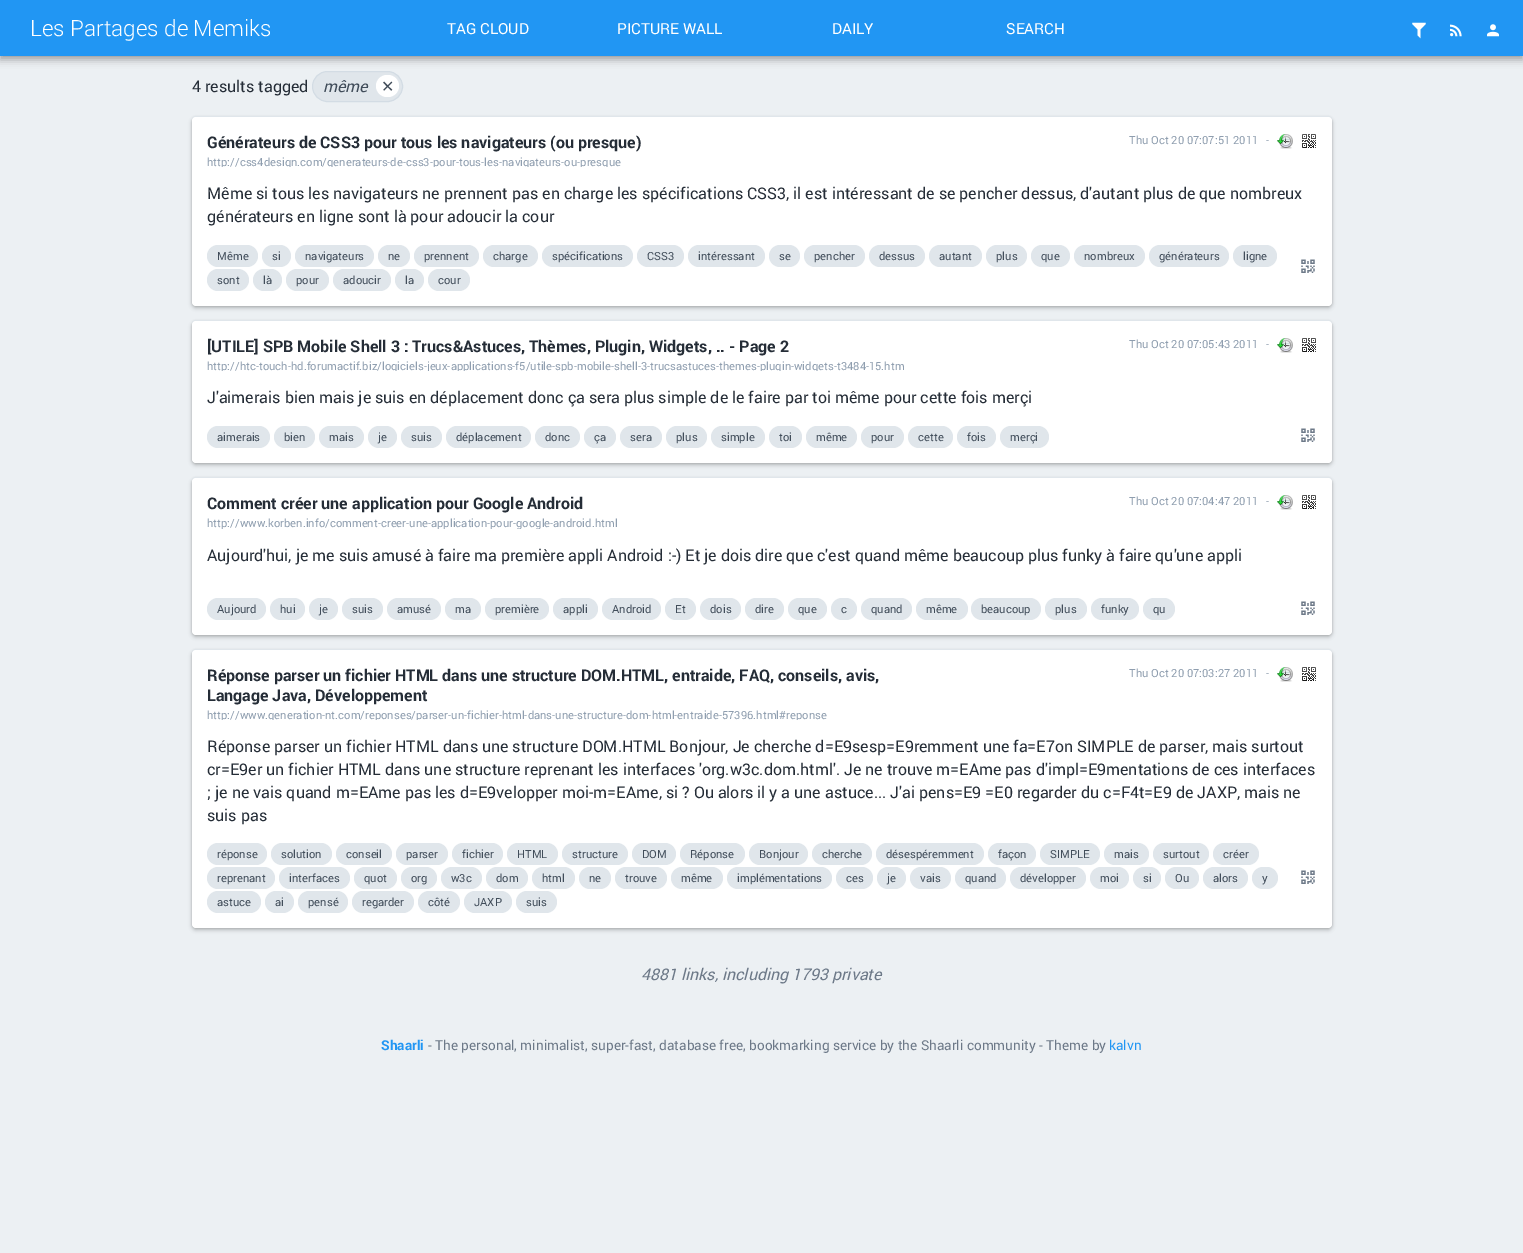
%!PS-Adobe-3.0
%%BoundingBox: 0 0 1523 1253
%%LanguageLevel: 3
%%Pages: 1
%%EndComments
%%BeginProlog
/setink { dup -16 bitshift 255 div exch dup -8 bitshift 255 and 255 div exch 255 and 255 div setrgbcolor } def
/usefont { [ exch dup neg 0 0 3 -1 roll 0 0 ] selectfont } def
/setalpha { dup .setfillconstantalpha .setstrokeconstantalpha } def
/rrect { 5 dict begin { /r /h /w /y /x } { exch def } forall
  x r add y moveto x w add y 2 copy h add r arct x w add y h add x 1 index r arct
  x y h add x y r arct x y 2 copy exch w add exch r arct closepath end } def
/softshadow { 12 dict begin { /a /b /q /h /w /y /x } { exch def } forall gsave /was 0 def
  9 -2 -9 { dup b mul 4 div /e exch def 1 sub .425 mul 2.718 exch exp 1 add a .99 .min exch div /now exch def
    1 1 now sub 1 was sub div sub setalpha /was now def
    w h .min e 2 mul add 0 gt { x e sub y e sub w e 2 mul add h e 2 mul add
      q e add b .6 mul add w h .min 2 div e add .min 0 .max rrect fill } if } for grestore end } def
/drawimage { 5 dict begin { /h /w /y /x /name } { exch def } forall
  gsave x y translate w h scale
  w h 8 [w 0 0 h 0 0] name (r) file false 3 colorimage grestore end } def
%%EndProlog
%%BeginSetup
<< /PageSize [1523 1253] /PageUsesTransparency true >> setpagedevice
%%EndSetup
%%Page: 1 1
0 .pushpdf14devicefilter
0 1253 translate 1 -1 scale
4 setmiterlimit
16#ECF0F3 setink
0 0 1523 1253 rectfill
16#000000 setink
0 4 1523 56 0 4 0.28 softshadow
0 0 1523 56 0 2 0.14 softshadow
16#2196F3 setink
0 0 1523 56 rectfill
/Roboto-Light 22.4 usefont
16#FFFFFF setink
30 36 moveto (Les Partages de Memiks) show
/Roboto-Regular 15.25 usefont
[
    [(TAG CLOUD) 447 34]
    [(PICTURE WALL) 617 34]
    [(DAILY) 832 34]
    [(SEARCH) 1006 34]
] { aload pop moveto show } forall
(img1.raw) 1412 22 14 17 drawimage
(img2.raw) 1450 24 12 13 drawimage
(img3.raw) 1487 24 12 13 drawimage
/Roboto-Regular 16 usefont
16#252D37 setink
192 92 moveto (4 results tagged) show
16#E0E6EB setink
312.5 71.5 90 30 15 rrect gsave fill grestore
16#D3DCE4 setink
stroke
/Roboto-Italic 16 usefont
16#414D5A setink
323 92 moveto (même) show
16#FFFFFF setink
376 75 23 22 11 rrect fill
/DejaVuSans-Regular 16 usefont
16#414D5A setink
381 92 moveto (✕) show
16#000000 setink
192 119 1140 189 4 2 0.24 softshadow
192 117 1140 189 4 1 0.12 softshadow
16#E0E6EB setink
196 116 moveto 193 116 192 118 192 121 curveto 192 119 194 117 196 117 curveto 1328 117 lineto 1330 117 1332 119 1332 121 curveto 1332 118 1331 116 1328 116 curveto closepath fill
16#FFFFFF setink
192 117 1140 189 4 rrect fill
/Roboto-Bold 16 usefont
16#252D37 setink
207 148 moveto (Générateurs de CSS3 pour tous les navigateurs \(ou presque\)) show
gsave
207 156 730 11 rectclip
/Roboto-Regular 11.2 usefont
16#8F9EAF setink
207 166 moveto (http://css4design.com/generateurs-de-css3-pour-tous-les-navigateurs-ou-presque) show
grestore
/Roboto-Regular 11.2 usefont
16#8F9EAF setink
1129 144 moveto (Thu Oct 20 07:07:51 2011) show
1266 144 moveto (-) show
(img4.raw) 1277 134 16 15 drawimage
(img5.raw) 1302 134 14 14 drawimage
/Roboto-Regular 16 usefont
16#252D37 setink
207 199 moveto (Même si tous les navigateurs ne prennent pas en charge les spécifications CSS3, il est intéressant de se pencher dessus, d'autant plus de que nombreux) show
207 222 moveto (générateurs en ligne sont là pour adoucir la cour) show
16#E0E6EB setink
207 245 51 22 11 rrect fill
/Roboto-Regular 11.2 usefont
16#414D5A setink
217 260 moveto (Même) show
16#E0E6EB setink
262 245 29 22 11 rrect fill
16#414D5A setink
272 260 moveto (si) show
16#E0E6EB setink
295 245 79 22 11 rrect fill
16#414D5A setink
305 260 moveto (navigateurs) show
16#E0E6EB setink
378 245 32 22 11 rrect fill
16#414D5A setink
388 260 moveto (ne) show
16#E0E6EB setink
414 245 65 22 11 rrect fill
16#414D5A setink
424 260 moveto (prennent) show
16#E0E6EB setink
483 245 55 22 11 rrect fill
16#414D5A setink
493 260 moveto (charge) show
16#E0E6EB setink
542 245 91 22 11 rrect fill
16#414D5A setink
552 260 moveto (spécifications) show
16#E0E6EB setink
637 245 47 22 11 rrect fill
16#414D5A setink
647 260 moveto (CSS3) show
16#E0E6EB setink
688 245 77 22 11 rrect fill
16#414D5A setink
698 260 moveto (intéressant) show
16#E0E6EB setink
769 245 31 22 11 rrect fill
16#414D5A setink
779 260 moveto (se) show
16#E0E6EB setink
804 245 61 22 11 rrect fill
16#414D5A setink
814 260 moveto (pencher) show
16#E0E6EB setink
869 245 56 22 11 rrect fill
16#414D5A setink
879 260 moveto (dessus) show
16#E0E6EB setink
929 245 53 22 11 rrect fill
16#414D5A setink
939 260 moveto (autant) show
16#E0E6EB setink
986 245 41 22 11 rrect fill
16#414D5A setink
996 260 moveto (plus) show
16#E0E6EB setink
1031 245 39 22 11 rrect fill
16#414D5A setink
1041 260 moveto (que) show
16#E0E6EB setink
1074 245 71 22 11 rrect fill
16#414D5A setink
1084 260 moveto (nombreux) show
16#E0E6EB setink
1149 245 80 22 11 rrect fill
16#414D5A setink
1159 260 moveto (générateurs) show
16#E0E6EB setink
1233 245 44 22 11 rrect fill
16#414D5A setink
1243 260 moveto (ligne) show
16#E0E6EB setink
207 269 42 22 11 rrect fill
16#414D5A setink
217 284 moveto (sont) show
16#E0E6EB setink
253 269 29 22 11 rrect fill
16#414D5A setink
263 284 moveto (là) show
16#E0E6EB setink
286 269 43 22 11 rrect fill
16#414D5A setink
296 284 moveto (pour) show
16#E0E6EB setink
333 269 58 22 11 rrect fill
16#414D5A setink
343 284 moveto (adoucir) show
16#E0E6EB setink
395 269 29 22 11 rrect fill
16#414D5A setink
405 284 moveto (la) show
16#E0E6EB setink
428 269 42 22 11 rrect fill
16#414D5A setink
438 284 moveto (cour) show
(img6.raw) 1301 259 14 14 drawimage
16#000000 setink
192 323 1140 142 4 2 0.24 softshadow
192 321 1140 142 4 1 0.12 softshadow
16#E0E6EB setink
196 320 moveto 193 320 192 322 192 325 curveto 192 323 194 321 196 321 curveto 1328 321 lineto 1330 321 1332 323 1332 325 curveto 1332 322 1331 320 1328 320 curveto closepath fill
16#FFFFFF setink
192 321 1140 142 4 rrect fill
/Roboto-Bold 16 usefont
16#252D37 setink
207 352 moveto ([UTILE] SPB Mobile Shell 3 : Trucs&Astuces, Thèmes, Plugin, Widgets, .. - Page 2) show
gsave
207 360 730 11 rectclip
/Roboto-Regular 11.2 usefont
16#8F9EAF setink
207 370 moveto (http://htc-touch-hd.forumactif.biz/logiciels-jeux-applications-f5/utile-spb-mobile-shell-3-trucsastuces-themes-plugin-widgets-t3484-15.htm) show
grestore
/Roboto-Regular 11.2 usefont
16#8F9EAF setink
1129 348 moveto (Thu Oct 20 07:05:43 2011) show
1266 348 moveto (-) show
(img4.raw) 1277 338 16 15 drawimage
(img5.raw) 1302 338 14 14 drawimage
/Roboto-Regular 16 usefont
16#252D37 setink
207 403 moveto (J'aimerais bien mais je suis en déplacement donc ça sera plus simple de le faire par toi même pour cette fois merçi) show
16#E0E6EB setink
207 426 63 22 11 rrect fill
/Roboto-Regular 11.2 usefont
16#414D5A setink
217 441 moveto (aimerais) show
16#E0E6EB setink
274 426 41 22 11 rrect fill
16#414D5A setink
284 441 moveto (bien) show
16#E0E6EB setink
319 426 45 22 11 rrect fill
16#414D5A setink
329 441 moveto (mais) show
16#E0E6EB setink
368 426 29 22 11 rrect fill
16#414D5A setink
378 441 moveto (je) show
16#E0E6EB setink
401 426 41 22 11 rrect fill
16#414D5A setink
411 441 moveto (suis) show
16#E0E6EB setink
446 426 85 22 11 rrect fill
16#414D5A setink
456 441 moveto (déplacement) show
16#E0E6EB setink
535 426 45 22 11 rrect fill
16#414D5A setink
545 441 moveto (donc) show
16#E0E6EB setink
584 426 32 22 11 rrect fill
16#414D5A setink
594 441 moveto (ça) show
16#E0E6EB setink
620 426 42 22 11 rrect fill
16#414D5A setink
630 441 moveto (sera) show
16#E0E6EB setink
666 426 41 22 11 rrect fill
16#414D5A setink
676 441 moveto (plus) show
16#E0E6EB setink
711 426 54 22 11 rrect fill
16#414D5A setink
721 441 moveto (simple) show
16#E0E6EB setink
769 426 33 22 11 rrect fill
16#414D5A setink
779 441 moveto (toi) show
16#E0E6EB setink
806 426 51 22 11 rrect fill
16#414D5A setink
816 441 moveto (même) show
16#E0E6EB setink
861 426 43 22 11 rrect fill
16#414D5A setink
871 441 moveto (pour) show
16#E0E6EB setink
908 426 45 22 11 rrect fill
16#414D5A setink
918 441 moveto (cette) show
16#E0E6EB setink
957 426 39 22 11 rrect fill
16#414D5A setink
967 441 moveto (fois) show
16#E0E6EB setink
1000 426 49 22 11 rrect fill
16#414D5A setink
1010 441 moveto (merçi) show
(img6.raw) 1301 428 14 14 drawimage
16#000000 setink
192 480 1140 157 4 2 0.24 softshadow
192 478 1140 157 4 1 0.12 softshadow
16#E0E6EB setink
196 477 moveto 193 477 192 479 192 482 curveto 192 480 194 478 196 478 curveto 1328 478 lineto 1330 478 1332 480 1332 482 curveto 1332 479 1331 477 1328 477 curveto closepath fill
16#FFFFFF setink
192 478 1140 157 4 rrect fill
/Roboto-Bold 16 usefont
16#252D37 setink
207 509 moveto (Comment créer une application pour Google Android) show
gsave
207 517 730 12 rectclip
/Roboto-Regular 11.2 usefont
16#8F9EAF setink
207 527 moveto (http://www.korben.info/comment-creer-une-application-pour-google-android.html) show
grestore
/Roboto-Regular 11.2 usefont
16#8F9EAF setink
1129 505 moveto (Thu Oct 20 07:04:47 2011) show
1266 505 moveto (-) show
(img4.raw) 1277 495 16 15 drawimage
(img5.raw) 1302 495 14 14 drawimage
/Roboto-Regular 16 usefont
16#252D37 setink
207 561 moveto (Aujourd'hui, je me suis amusé à faire ma première appli Android :-\) Et je dois dire que c'est quand même beaucoup plus funky à faire qu'une appli) show
16#E0E6EB setink
207 598 59 22 11 rrect fill
/Roboto-Regular 11.2 usefont
16#414D5A setink
217 613 moveto (Aujourd) show
16#E0E6EB setink
270 598 35 22 11 rrect fill
16#414D5A setink
280 613 moveto (hui) show
16#E0E6EB setink
309 598 29 22 11 rrect fill
16#414D5A setink
319 613 moveto (je) show
16#E0E6EB setink
342 598 41 22 11 rrect fill
16#414D5A setink
352 613 moveto (suis) show
16#E0E6EB setink
387 598 54 22 11 rrect fill
16#414D5A setink
397 613 moveto (amusé) show
16#E0E6EB setink
445 598 36 22 11 rrect fill
16#414D5A setink
455 613 moveto (ma) show
16#E0E6EB setink
485 598 64 22 11 rrect fill
16#414D5A setink
495 613 moveto (première) show
16#E0E6EB setink
553 598 45 22 11 rrect fill
16#414D5A setink
563 613 moveto (appli) show
16#E0E6EB setink
602 598 59 22 11 rrect fill
16#414D5A setink
612 613 moveto (Android) show
16#E0E6EB setink
665 598 31 22 11 rrect fill
16#414D5A setink
675 613 moveto (Et) show
16#E0E6EB setink
700 598 41 22 11 rrect fill
16#414D5A setink
710 613 moveto (dois) show
16#E0E6EB setink
745 598 39 22 11 rrect fill
16#414D5A setink
755 613 moveto (dire) show
16#E0E6EB setink
788 598 39 22 11 rrect fill
16#414D5A setink
798 613 moveto (que) show
16#E0E6EB setink
831 598 26 22 11 rrect fill
16#414D5A setink
841 613 moveto (c) show
16#E0E6EB setink
861 598 51 22 11 rrect fill
16#414D5A setink
871 613 moveto (quand) show
16#E0E6EB setink
916 598 52 22 11 rrect fill
16#414D5A setink
926 613 moveto (même) show
16#E0E6EB setink
971 598 70 22 11 rrect fill
16#414D5A setink
981 613 moveto (beaucoup) show
16#E0E6EB setink
1045 598 42 22 11 rrect fill
16#414D5A setink
1055 613 moveto (plus) show
16#E0E6EB setink
1091 598 48 22 11 rrect fill
16#414D5A setink
1101 613 moveto (funky) show
16#E0E6EB setink
1143 598 32 22 11 rrect fill
16#414D5A setink
1153 613 moveto (qu) show
(img6.raw) 1301 601 14 14 drawimage
16#000000 setink
192 652 1140 278 4 2 0.24 softshadow
192 650 1140 278 4 1 0.12 softshadow
16#E0E6EB setink
196 649 moveto 193 649 192 651 192 654 curveto 192 652 194 650 196 650 curveto 1328 650 lineto 1330 650 1332 652 1332 654 curveto 1332 651 1331 649 1328 649 curveto closepath fill
16#FFFFFF setink
192 650 1140 278 4 rrect fill
/Roboto-Bold 16 usefont
16#252D37 setink
207 681 moveto (Réponse parser un fichier HTML dans une structure DOM.HTML, entraide, FAQ, conseils, avis,) show
207 701 moveto (Langage Java, Développement) show
gsave
207 709 730 11 rectclip
/Roboto-Regular 11.2 usefont
16#8F9EAF setink
207 719 moveto (http://www.generation-nt.com/reponses/parser-un-fichier-html-dans-une-structure-dom-html-entraide-57396.html#reponse) show
grestore
/Roboto-Regular 11.2 usefont
16#8F9EAF setink
1129 677 moveto (Thu Oct 20 07:03:27 2011) show
1266 677 moveto (-) show
(img4.raw) 1277 667 16 15 drawimage
(img5.raw) 1302 667 14 14 drawimage
/Roboto-Regular 16 usefont
16#252D37 setink
[
    [(Réponse parser un fichier HTML dans une structure DOM.HTML Bonjour, Je cherche d=E9sesp=E9remment une fa=E7on SIMPLE de parser, mais surtout) 207 752]
    [(cr=E9er un fichier HTML dans une structure reprenant les interfaces 'org.w3c.dom.html'. Je ne trouve m=EAme pas d'impl=E9mentations de ces interfaces) 207 775]
    [(; je ne vais quand m=EAme pas les d=E9velopper moi-m=EAme, si ? Ou alors il y a une astuce... J'ai pens=E9 =E0 regarder du c=F4t=E9 de JAXP, mais ne) 207 798]
    [(suis pas) 207 821]
] { aload pop moveto show } forall
16#E0E6EB setink
207 843 60 22 11 rrect fill
/Roboto-Regular 11.2 usefont
16#414D5A setink
217 858 moveto (réponse) show
16#E0E6EB setink
271 843 61 22 11 rrect fill
16#414D5A setink
281 858 moveto (solution) show
16#E0E6EB setink
336 843 56 22 11 rrect fill
16#414D5A setink
346 858 moveto (conseil) show
16#E0E6EB setink
396 843 52 22 11 rrect fill
16#414D5A setink
406 858 moveto (parser) show
16#E0E6EB setink
452 843 51 22 11 rrect fill
16#414D5A setink
462 858 moveto (fichier) show
16#E0E6EB setink
507 843 51 22 11 rrect fill
16#414D5A setink
517 858 moveto (HTML) show
16#E0E6EB setink
562 843 66 22 11 rrect fill
16#414D5A setink
572 858 moveto (structure) show
16#E0E6EB setink
632 843 44 22 11 rrect fill
16#414D5A setink
642 858 moveto (DOM) show
16#E0E6EB setink
680 843 65 22 11 rrect fill
16#414D5A setink
690 858 moveto (Réponse) show
16#E0E6EB setink
749 843 59 22 11 rrect fill
16#414D5A setink
759 858 moveto (Bonjour) show
16#E0E6EB setink
812 843 60 22 11 rrect fill
16#414D5A setink
822 858 moveto (cherche) show
16#E0E6EB setink
876 843 108 22 11 rrect fill
16#414D5A setink
886 858 moveto (désespéremment) show
16#E0E6EB setink
988 843 48 22 11 rrect fill
16#414D5A setink
998 858 moveto (façon) show
16#E0E6EB setink
1040 843 60 22 11 rrect fill
16#414D5A setink
1050 858 moveto (SIMPLE) show
16#E0E6EB setink
1104 843 45 22 11 rrect fill
16#414D5A setink
1114 858 moveto (mais) show
16#E0E6EB setink
1153 843 56 22 11 rrect fill
16#414D5A setink
1163 858 moveto (surtout) show
16#E0E6EB setink
1213 843 46 22 11 rrect fill
16#414D5A setink
1223 858 moveto (créer) show
16#E0E6EB setink
207 867 68 22 11 rrect fill
16#414D5A setink
217 882 moveto (reprenant) show
16#E0E6EB setink
279 867 71 22 11 rrect fill
16#414D5A setink
289 882 moveto (interfaces) show
16#E0E6EB setink
354 867 43 22 11 rrect fill
16#414D5A setink
364 882 moveto (quot) show
16#E0E6EB setink
401 867 36 22 11 rrect fill
16#414D5A setink
411 882 moveto (org) show
16#E0E6EB setink
441 867 41 22 11 rrect fill
16#414D5A setink
451 882 moveto (w3c) show
16#E0E6EB setink
486 867 42 22 11 rrect fill
16#414D5A setink
496 882 moveto (dom) show
16#E0E6EB setink
532 867 43 22 11 rrect fill
16#414D5A setink
542 882 moveto (html) show
16#E0E6EB setink
579 867 32 22 11 rrect fill
16#414D5A setink
589 882 moveto (ne) show
16#E0E6EB setink
615 867 52 22 11 rrect fill
16#414D5A setink
625 882 moveto (trouve) show
16#E0E6EB setink
671 867 52 22 11 rrect fill
16#414D5A setink
681 882 moveto (même) show
16#E0E6EB setink
727 867 105 22 11 rrect fill
16#414D5A setink
737 882 moveto (implémentations) show
16#E0E6EB setink
836 867 37 22 11 rrect fill
16#414D5A setink
846 882 moveto (ces) show
16#E0E6EB setink
877 867 29 22 11 rrect fill
16#414D5A setink
887 882 moveto (je) show
16#E0E6EB setink
910 867 41 22 11 rrect fill
16#414D5A setink
920 882 moveto (vais) show
16#E0E6EB setink
955 867 51 22 11 rrect fill
16#414D5A setink
965 882 moveto (quand) show
16#E0E6EB setink
1010 867 76 22 11 rrect fill
16#414D5A setink
1020 882 moveto (développer) show
16#E0E6EB setink
1090 867 39 22 11 rrect fill
16#414D5A setink
1100 882 moveto (moi) show
16#E0E6EB setink
1133 867 28 22 11 rrect fill
16#414D5A setink
1143 882 moveto (si) show
16#E0E6EB setink
1165 867 34 22 11 rrect fill
16#414D5A setink
1175 882 moveto (Ou) show
16#E0E6EB setink
1203 867 45 22 11 rrect fill
16#414D5A setink
1213 882 moveto (alors) show
16#E0E6EB setink
1252 867 26 22 11 rrect fill
16#414D5A setink
1262 882 moveto (y) show
16#E0E6EB setink
207 891 54 22 11 rrect fill
16#414D5A setink
217 906 moveto (astuce) show
16#E0E6EB setink
265 891 29 22 11 rrect fill
16#414D5A setink
275 906 moveto (ai) show
16#E0E6EB setink
298 891 50 22 11 rrect fill
16#414D5A setink
308 906 moveto (pensé) show
16#E0E6EB setink
352 891 62 22 11 rrect fill
16#414D5A setink
362 906 moveto (regarder) show
16#E0E6EB setink
418 891 42 22 11 rrect fill
16#414D5A setink
428 906 moveto (côté) show
16#E0E6EB setink
464 891 48 22 11 rrect fill
16#414D5A setink
474 906 moveto (JAXP) show
16#E0E6EB setink
516 891 41 22 11 rrect fill
16#414D5A setink
526 906 moveto (suis) show
(img6.raw) 1301 870 14 14 drawimage
/Roboto-Italic 16 usefont
16#6D7988 setink
641 980 moveto (4881 links, including 1793 private) show
/Roboto-Bold 13.6 usefont
16#2196F3 setink
381 1050 moveto (Shaarli) show
/Roboto-Regular 13.6 usefont
16#6D7988 setink
428 1050 moveto (- The personal, minimalist, super-fast, database free, bookmarking service by the Shaarli community - Theme by) show
16#2196F3 setink
1109 1050 moveto (kalvn) show
.poppdf14devicefilter showpage
%%EOF
